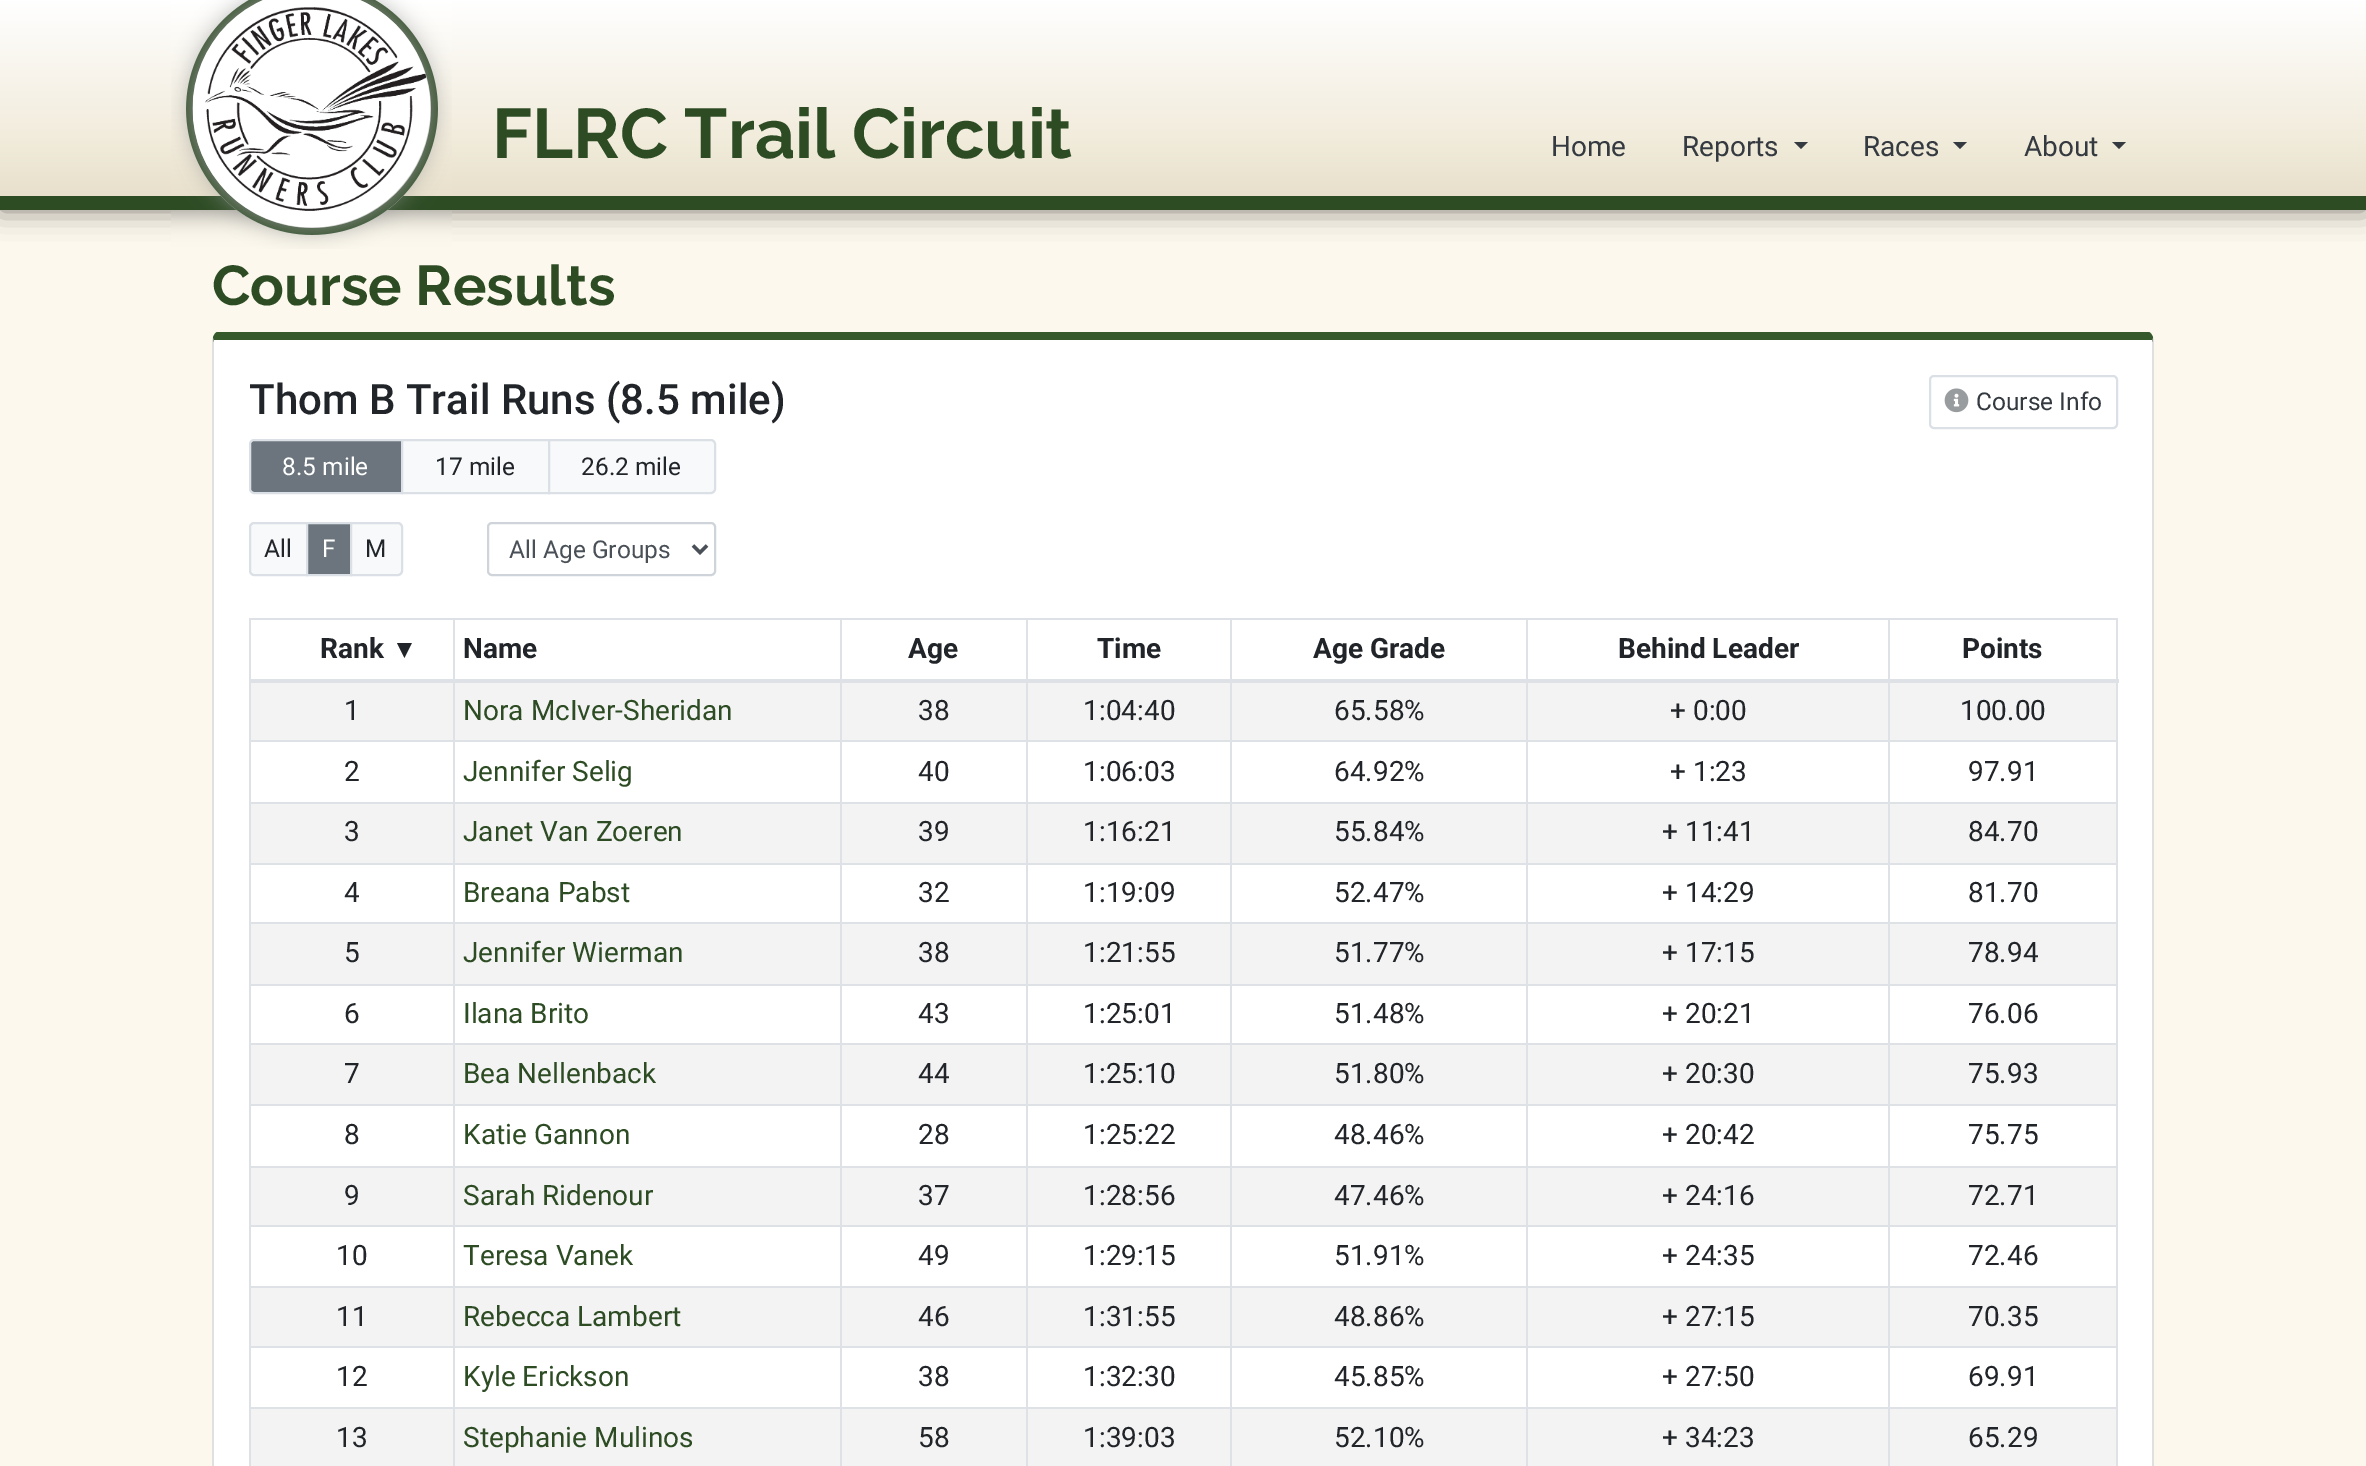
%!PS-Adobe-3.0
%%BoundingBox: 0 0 2366 1466
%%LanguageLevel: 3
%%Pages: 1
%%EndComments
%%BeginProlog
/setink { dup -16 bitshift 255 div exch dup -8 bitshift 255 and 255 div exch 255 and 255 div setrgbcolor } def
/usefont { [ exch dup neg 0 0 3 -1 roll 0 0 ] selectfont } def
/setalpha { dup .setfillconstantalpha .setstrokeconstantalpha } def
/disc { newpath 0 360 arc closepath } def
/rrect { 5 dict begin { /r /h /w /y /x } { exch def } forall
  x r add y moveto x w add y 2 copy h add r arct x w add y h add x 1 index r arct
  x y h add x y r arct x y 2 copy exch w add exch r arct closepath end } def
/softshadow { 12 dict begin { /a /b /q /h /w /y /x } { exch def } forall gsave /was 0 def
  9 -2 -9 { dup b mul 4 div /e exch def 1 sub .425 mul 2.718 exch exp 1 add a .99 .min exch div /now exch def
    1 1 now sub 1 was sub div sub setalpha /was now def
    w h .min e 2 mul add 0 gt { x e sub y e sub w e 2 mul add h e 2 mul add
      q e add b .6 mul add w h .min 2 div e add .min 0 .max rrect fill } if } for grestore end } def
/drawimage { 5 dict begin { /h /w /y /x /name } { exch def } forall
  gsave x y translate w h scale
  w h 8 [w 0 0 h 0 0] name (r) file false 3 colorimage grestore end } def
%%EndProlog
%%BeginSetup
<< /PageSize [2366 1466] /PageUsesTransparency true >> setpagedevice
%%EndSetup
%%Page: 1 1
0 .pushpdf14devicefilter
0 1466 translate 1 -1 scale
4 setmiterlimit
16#FCF8ED setink
0 0 2366 1466 rectfill
16#000000 setink
0 0 2366 210 0 14 0.5 softshadow
gsave 0 0 moveto 2366 0 lineto 2366 196 lineto 0 196 lineto closepath clip newpath
<< /ShadingType 2 /ColorSpace /DeviceRGB /Coords [1183 196 1183 0] /Extend [true true] /Function << /FunctionType 3 /Domain [0 1] /Functions [<< /FunctionType 2 /Domain [0 1] /C0 [0.91 0.878 0.8] /C1 [0.949 0.925 0.863] /N 1 >> << /FunctionType 2 /Domain [0 1] /C0 [0.949 0.925 0.863] /C1 [1 1 1] /N 1 >>] /Bounds [0.3] /Encode [0 1 0 1] >> >> shfill grestore
16#2D4C24 setink
0 196 2366 14 rectfill
0.87 setalpha
16#FFFFFF setink
312 109 122.5 disc fill
1 setalpha
16#2D4C24 setink
7 setlinewidth
312 109 122.5 disc stroke
(img1.raw) 171 0 281 249 drawimage
/Raleway-Thin 70 usefont
492 158 moveto (FLRC Trail Circuit) show
/Roboto-Regular 28 usefont
16#343A40 setink
1551 156 moveto (Home) show
1682 156 moveto (Reports) show
1794 142 moveto 1808 142 lineto 1801 149 lineto closepath fill
1863 156 moveto (Races) show
1953 142 moveto 1967 142 lineto 1960 149 lineto closepath fill
2024 156 moveto (About) show
2112 142 moveto 2126 142 lineto 2119 149 lineto closepath fill
/Raleway-Thin 56 usefont
16#2D4C24 setink
212 305 moveto (Course Results) show
16#FFFFFF setink
212 333 1942 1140 7 rrect fill
16#35592A setink
213 337 moveto 214 335 215 333 217 332 curveto 2149 332 lineto 2151 333 2152 335 2153 337 curveto 2152 342 lineto 2152 340 lineto 214 340 lineto 214 342 lineto closepath fill
0.12 setalpha
16#000000 setink
2153 337 moveto 2154 340 lineto 2154 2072 lineto 2154 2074 2153 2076 2152 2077 curveto 2151 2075 lineto 2152 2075 2152 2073 2152 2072 curveto 2152 342 lineto closepath fill
214 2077 moveto 213 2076 212 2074 212 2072 curveto 212 340 lineto 213 337 lineto 214 342 lineto 214 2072 lineto 214 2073 214 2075 215 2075 curveto closepath fill
/Roboto-Medium 42 usefont
1 setalpha
16#212529 setink
249 414 moveto (Thom B Trail Runs \(8.5 mile\)) show
16#DAE0E5 setink
2 setlinewidth
1930 376 187 52 4 rrect stroke
(img2.raw) 1944 388 25 25 drawimage
/Roboto-Regular 24.5 usefont
16#343A40 setink
1976 410 moveto (Course Info) show
16#6C757D setink
254 440 moveto 402 440 lineto 402 493 lineto 254 493 lineto 252 493 250 491 250 489 curveto 250 444 lineto 250 442 252 440 254 440 curveto closepath gsave fill grestore
16#DAE0E5 setink
stroke
16#FFFFFF setink
282 475 moveto (8.5 mile) show
16#F8F9FA setink
402 440 moveto 549 440 lineto 549 493 lineto 402 493 lineto closepath gsave fill grestore
16#DAE0E5 setink
stroke
16#212529 setink
435 475 moveto (17 mile) show
16#F8F9FA setink
549 440 moveto 711 440 lineto 713 440 715 442 715 444 curveto 715 489 lineto 715 491 713 493 711 493 curveto 549 493 lineto closepath gsave fill grestore
16#DAE0E5 setink
stroke
16#212529 setink
581 475 moveto (26.2 mile) show
16#F8F9FA setink
254 523 moveto 307 523 lineto 307 575 lineto 254 575 lineto 252 575 250 573 250 571 curveto 250 527 lineto 250 525 252 523 254 523 curveto closepath gsave fill grestore
16#DAE0E5 setink
stroke
16#212529 setink
264 557 moveto (All) show
16#6C757D setink
307 523 moveto 351 523 lineto 351 575 lineto 307 575 lineto closepath gsave fill grestore
16#DAE0E5 setink
stroke
16#FFFFFF setink
322 557 moveto (F) show
16#F8F9FA setink
351 523 moveto 398 523 lineto 400 523 402 525 402 527 curveto 402 571 lineto 402 573 400 575 398 575 curveto 351 575 lineto closepath gsave fill grestore
16#DAE0E5 setink
stroke
16#212529 setink
365 557 moveto (M) show
16#CED4DA setink
488 523 227 52 4 rrect stroke
16#495057 setink
3.5 setlinewidth
693 545.5 moveto 700 552.5 lineto 707 545.5 lineto stroke
509 558 moveto (All Age Groups) show
[
    [249 618 1869 2 16#DEE2E6]
    [2116 618 2 848 16#DEE2E6]
    [249 618 2 848 16#DEE2E6]
] { aload pop setink rectfill } forall
/Roboto-Bold 28 usefont
16#212529 setink
320 658 moveto (Rank) show
/DejaVuSans-Bold 28 usefont
397 658 moveto (▾) show
/Roboto-Bold 28 usefont
[
    [(Name) 463 658]
    [(Age) 908 658]
    [(Time) 1097 658]
    [(Age Grade) 1313 658]
    [(Behind Leader) 1618 658]
] { aload pop moveto show } forall
[
    [251 683 1865 57 16#F3F3F3]
    [1888 740 230 2 16#DEE2E6]
    [1888 802 230 2 16#DEE2E6]
    [251 804 1865 59 16#F3F3F3]
    [1888 863 230 2 16#DEE2E6]
    [1888 922 230 2 16#DEE2E6]
    [251 924 1865 60 16#F3F3F3]
    [1888 984 230 2 16#DEE2E6]
    [1888 1043 230 2 16#DEE2E6]
    [251 1045 1865 59 16#F3F3F3]
    [1888 1104 230 2 16#DEE2E6]
    [1888 1166 230 2 16#DEE2E6]
    [251 1168 1865 57 16#F3F3F3]
    [1888 1225 230 2 16#DEE2E6]
    [1888 1286 230 2 16#DEE2E6]
    [251 1288 1865 58 16#F3F3F3]
    [1888 1346 230 2 16#DEE2E6]
    [1888 1407 230 2 16#DEE2E6]
    [251 1409 1865 57 16#F3F3F3]
    [1888 1407 2 59 16#DEE2E6]
    [1526 1407 364 2 16#DEE2E6]
    [1888 1346 2 63 16#DEE2E6]
    [1526 1346 364 2 16#DEE2E6]
    [1888 1286 2 62 16#DEE2E6]
    [1526 1286 364 2 16#DEE2E6]
    [1888 1225 2 63 16#DEE2E6]
    [1526 1225 364 2 16#DEE2E6]
    [1888 1166 2 61 16#DEE2E6]
    [1526 1166 364 2 16#DEE2E6]
    [1888 1104 2 63 16#DEE2E6]
    [1526 1104 364 2 16#DEE2E6]
    [1888 1043 2 63 16#DEE2E6]
    [1526 1043 364 2 16#DEE2E6]
    [1888 984 2 61 16#DEE2E6]
    [1526 984 364 2 16#DEE2E6]
    [1888 922 2 63 16#DEE2E6]
    [1526 922 364 2 16#DEE2E6]
    [1888 863 2 61 16#DEE2E6]
    [1526 863 364 2 16#DEE2E6]
    [1888 802 2 63 16#DEE2E6]
    [1526 802 364 2 16#DEE2E6]
    [1888 740 2 63 16#DEE2E6]
    [1526 740 364 2 16#DEE2E6]
    [1526 1407 2 59 16#DEE2E6]
    [1230 1407 298 2 16#DEE2E6]
    [1526 1346 2 63 16#DEE2E6]
    [1230 1346 298 2 16#DEE2E6]
    [1526 1286 2 62 16#DEE2E6]
    [1230 1286 298 2 16#DEE2E6]
    [1526 1225 2 63 16#DEE2E6]
    [1230 1225 298 2 16#DEE2E6]
    [1526 1166 2 61 16#DEE2E6]
    [1230 1166 298 2 16#DEE2E6]
    [1526 1104 2 63 16#DEE2E6]
    [1230 1104 298 2 16#DEE2E6]
    [1526 1043 2 63 16#DEE2E6]
    [1230 1043 298 2 16#DEE2E6]
    [1526 984 2 61 16#DEE2E6]
    [1230 984 298 2 16#DEE2E6]
    [1526 922 2 63 16#DEE2E6]
    [1230 922 298 2 16#DEE2E6]
    [1526 863 2 61 16#DEE2E6]
    [1230 863 298 2 16#DEE2E6]
    [1526 802 2 63 16#DEE2E6]
    [1230 802 298 2 16#DEE2E6]
    [1526 740 2 63 16#DEE2E6]
    [1230 740 298 2 16#DEE2E6]
    [1230 1407 2 59 16#DEE2E6]
    [1026 1407 206 2 16#DEE2E6]
    [1230 1346 2 63 16#DEE2E6]
    [1026 1346 206 2 16#DEE2E6]
    [1230 1286 2 62 16#DEE2E6]
    [1026 1286 206 2 16#DEE2E6]
    [1230 1225 2 63 16#DEE2E6]
    [1026 1225 206 2 16#DEE2E6]
    [1230 1166 2 61 16#DEE2E6]
    [1026 1166 206 2 16#DEE2E6]
    [1230 1104 2 63 16#DEE2E6]
    [1026 1104 206 2 16#DEE2E6]
    [1230 1043 2 63 16#DEE2E6]
    [1026 1043 206 2 16#DEE2E6]
    [1230 984 2 61 16#DEE2E6]
    [1026 984 206 2 16#DEE2E6]
    [1230 922 2 63 16#DEE2E6]
    [1026 922 206 2 16#DEE2E6]
    [1230 863 2 61 16#DEE2E6]
    [1026 863 206 2 16#DEE2E6]
    [1230 802 2 63 16#DEE2E6]
    [1026 802 206 2 16#DEE2E6]
    [1230 740 2 63 16#DEE2E6]
    [1026 740 206 2 16#DEE2E6]
    [1026 1407 2 59 16#DEE2E6]
    [840 1407 187 2 16#DEE2E6]
    [1026 1346 2 63 16#DEE2E6]
    [840 1346 187 2 16#DEE2E6]
    [1026 1286 2 62 16#DEE2E6]
    [840 1286 187 2 16#DEE2E6]
    [1026 1225 2 63 16#DEE2E6]
    [840 1225 187 2 16#DEE2E6]
    [1026 1166 2 61 16#DEE2E6]
    [840 1166 187 2 16#DEE2E6]
    [1026 1104 2 63 16#DEE2E6]
    [840 1104 187 2 16#DEE2E6]
    [1026 1043 2 63 16#DEE2E6]
    [840 1043 187 2 16#DEE2E6]
    [1026 984 2 61 16#DEE2E6]
    [840 984 187 2 16#DEE2E6]
    [1026 922 2 63 16#DEE2E6]
    [840 922 187 2 16#DEE2E6]
    [1026 863 2 61 16#DEE2E6]
    [840 863 187 2 16#DEE2E6]
    [1026 802 2 63 16#DEE2E6]
    [840 802 187 2 16#DEE2E6]
    [1026 740 2 63 16#DEE2E6]
    [840 740 187 2 16#DEE2E6]
    [840 1407 2 59 16#DEE2E6]
    [453 1407 389 2 16#DEE2E6]
    [840 1346 2 63 16#DEE2E6]
    [453 1346 389 2 16#DEE2E6]
    [840 1286 2 62 16#DEE2E6]
    [453 1286 389 2 16#DEE2E6]
    [840 1225 2 63 16#DEE2E6]
    [453 1225 389 2 16#DEE2E6]
    [840 1166 2 61 16#DEE2E6]
    [453 1166 389 2 16#DEE2E6]
    [840 1104 2 63 16#DEE2E6]
    [453 1104 389 2 16#DEE2E6]
    [840 1043 2 63 16#DEE2E6]
    [453 1043 389 2 16#DEE2E6]
    [840 984 2 61 16#DEE2E6]
    [453 984 389 2 16#DEE2E6]
    [840 922 2 63 16#DEE2E6]
    [453 922 389 2 16#DEE2E6]
    [840 863 2 61 16#DEE2E6]
    [453 863 389 2 16#DEE2E6]
    [840 802 2 63 16#DEE2E6]
    [453 802 389 2 16#DEE2E6]
    [840 740 2 63 16#DEE2E6]
    [453 740 389 2 16#DEE2E6]
    [453 1407 2 59 16#DEE2E6]
    [249 1407 206 2 16#DEE2E6]
    [453 1346 2 63 16#DEE2E6]
    [249 1346 206 2 16#DEE2E6]
    [453 1286 2 62 16#DEE2E6]
    [249 1286 206 2 16#DEE2E6]
    [453 1225 2 63 16#DEE2E6]
    [249 1225 206 2 16#DEE2E6]
    [453 1166 2 61 16#DEE2E6]
    [249 1166 206 2 16#DEE2E6]
    [453 1104 2 63 16#DEE2E6]
    [249 1104 206 2 16#DEE2E6]
    [453 1043 2 63 16#DEE2E6]
    [249 1043 206 2 16#DEE2E6]
    [453 984 2 61 16#DEE2E6]
    [249 984 206 2 16#DEE2E6]
    [453 922 2 63 16#DEE2E6]
    [249 922 206 2 16#DEE2E6]
    [453 863 2 61 16#DEE2E6]
    [249 863 206 2 16#DEE2E6]
    [453 802 2 63 16#DEE2E6]
    [249 802 206 2 16#DEE2E6]
    [453 740 2 63 16#DEE2E6]
    [249 740 206 2 16#DEE2E6]
    [453 618 2 124 16#DEE2E6]
    [840 618 2 124 16#DEE2E6]
    [1026 618 2 124 16#DEE2E6]
    [1230 618 2 124 16#DEE2E6]
    [1526 618 2 124 16#DEE2E6]
    [1888 618 2 124 16#DEE2E6]
    [249 679 1870 4 16#DEE2E6]
] { aload pop setink rectfill } forall
16#212529 setink
1962 658 moveto (Points) show
/Roboto-Regular 28 usefont
344 720 moveto (1) show
16#2D4C24 setink
463 720 moveto (Nora McIver-Sheridan) show
16#212529 setink
[
    [(38) 918 720]
    [(1:04:40) 1083 720]
    [(65.58%) 1334 720]
    [(+ 0:00) 1670 720]
    [(100.00) 1960 720]
    [(2) 344 781]
] { aload pop moveto show } forall
16#2D4C24 setink
463 781 moveto (Jennifer Selig) show
16#212529 setink
[
    [(40) 918 781]
    [(1:06:03) 1083 781]
    [(64.92%) 1334 781]
    [(+ 1:23) 1670 781]
    [(97.91) 1968 781]
    [(3) 344 841]
] { aload pop moveto show } forall
16#2D4C24 setink
463 841 moveto (Janet Van Zoeren) show
16#212529 setink
[
    [(39) 918 841]
    [(1:16:21) 1083 841]
    [(55.84%) 1334 841]
    [(+ 11:41) 1662 841]
    [(84.70) 1968 841]
    [(4) 344 902]
] { aload pop moveto show } forall
16#2D4C24 setink
463 902 moveto (Breana Pabst) show
16#212529 setink
[
    [(32) 918 902]
    [(1:19:09) 1083 902]
    [(52.47%) 1334 902]
    [(+ 14:29) 1662 902]
    [(81.70) 1968 902]
    [(5) 344 962]
] { aload pop moveto show } forall
16#2D4C24 setink
463 962 moveto (Jennifer Wierman) show
16#212529 setink
[
    [(38) 918 962]
    [(1:21:55) 1083 962]
    [(51.77%) 1334 962]
    [(+ 17:15) 1662 962]
    [(78.94) 1968 962]
    [(6) 344 1023]
] { aload pop moveto show } forall
16#2D4C24 setink
463 1023 moveto (Ilana Brito) show
16#212529 setink
[
    [(43) 918 1023]
    [(1:25:01) 1083 1023]
    [(51.48%) 1334 1023]
    [(+ 20:21) 1662 1023]
    [(76.06) 1968 1023]
    [(7) 344 1083]
] { aload pop moveto show } forall
16#2D4C24 setink
463 1083 moveto (Bea Nellenback) show
16#212529 setink
[
    [(44) 918 1083]
    [(1:25:10) 1083 1083]
    [(51.80%) 1334 1083]
    [(+ 20:30) 1662 1083]
    [(75.93) 1968 1083]
    [(8) 344 1144]
] { aload pop moveto show } forall
16#2D4C24 setink
463 1144 moveto (Katie Gannon) show
16#212529 setink
[
    [(28) 918 1144]
    [(1:25:22) 1083 1144]
    [(48.46%) 1334 1144]
    [(+ 20:42) 1662 1144]
    [(75.75) 1968 1144]
    [(9) 344 1205]
] { aload pop moveto show } forall
16#2D4C24 setink
463 1205 moveto (Sarah Ridenour) show
16#212529 setink
[
    [(37) 918 1205]
    [(1:28:56) 1083 1205]
    [(47.46%) 1334 1205]
    [(+ 24:16) 1662 1205]
    [(72.71) 1968 1205]
    [(10) 336 1265]
] { aload pop moveto show } forall
16#2D4C24 setink
463 1265 moveto (Teresa Vanek) show
16#212529 setink
[
    [(49) 918 1265]
    [(1:29:15) 1083 1265]
    [(51.91%) 1334 1265]
    [(+ 24:35) 1662 1265]
    [(72.46) 1968 1265]
    [(11) 336 1326]
] { aload pop moveto show } forall
16#2D4C24 setink
463 1326 moveto (Rebecca Lambert) show
16#212529 setink
[
    [(46) 918 1326]
    [(1:31:55) 1083 1326]
    [(48.86%) 1334 1326]
    [(+ 27:15) 1662 1326]
    [(70.35) 1968 1326]
    [(12) 336 1386]
] { aload pop moveto show } forall
16#2D4C24 setink
463 1386 moveto (Kyle Erickson) show
16#212529 setink
[
    [(38) 918 1386]
    [(1:32:30) 1083 1386]
    [(45.85%) 1334 1386]
    [(+ 27:50) 1662 1386]
    [(69.91) 1968 1386]
    [(13) 336 1447]
] { aload pop moveto show } forall
16#2D4C24 setink
463 1447 moveto (Stephanie Mulinos) show
16#212529 setink
[
    [(58) 918 1447]
    [(1:39:03) 1083 1447]
    [(52.10%) 1334 1447]
    [(+ 34:23) 1662 1447]
    [(65.29) 1968 1447]
] { aload pop moveto show } forall
.poppdf14devicefilter showpage
%%EOF
